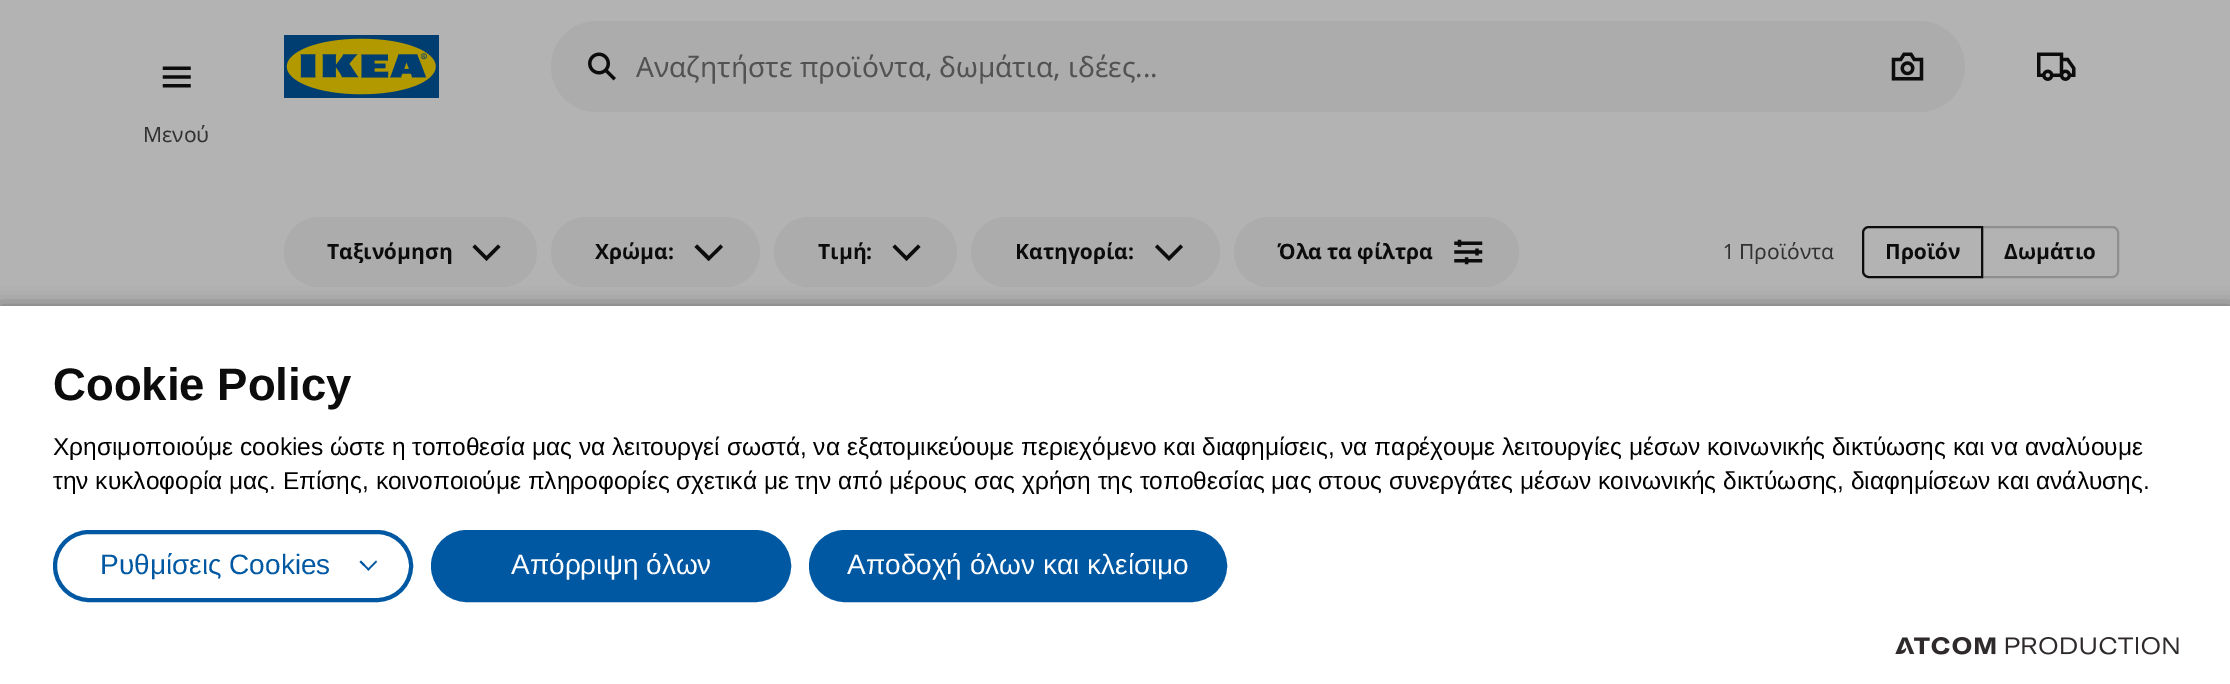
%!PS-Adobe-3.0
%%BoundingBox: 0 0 2230 684
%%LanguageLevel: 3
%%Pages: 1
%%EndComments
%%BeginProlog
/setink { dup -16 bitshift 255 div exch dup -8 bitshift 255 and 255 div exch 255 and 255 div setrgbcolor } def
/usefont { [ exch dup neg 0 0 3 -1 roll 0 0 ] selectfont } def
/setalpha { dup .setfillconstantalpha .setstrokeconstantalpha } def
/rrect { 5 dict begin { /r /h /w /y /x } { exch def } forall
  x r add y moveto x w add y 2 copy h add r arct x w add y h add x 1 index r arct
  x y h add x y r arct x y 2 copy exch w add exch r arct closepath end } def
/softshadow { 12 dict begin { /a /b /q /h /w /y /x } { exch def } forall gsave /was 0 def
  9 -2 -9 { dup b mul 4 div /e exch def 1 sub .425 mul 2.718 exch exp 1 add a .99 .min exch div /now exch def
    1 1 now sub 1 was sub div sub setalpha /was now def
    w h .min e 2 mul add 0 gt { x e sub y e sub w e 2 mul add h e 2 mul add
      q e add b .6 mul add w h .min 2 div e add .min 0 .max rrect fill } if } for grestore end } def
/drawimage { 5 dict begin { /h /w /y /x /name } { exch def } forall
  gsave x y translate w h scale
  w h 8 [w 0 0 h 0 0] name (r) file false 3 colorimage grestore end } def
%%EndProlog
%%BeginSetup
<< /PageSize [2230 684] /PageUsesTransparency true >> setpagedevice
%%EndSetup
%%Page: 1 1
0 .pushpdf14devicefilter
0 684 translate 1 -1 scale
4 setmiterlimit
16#B3B3B3 setink
0 0 2230 684 rectfill
(img1.raw) 284 35 155 63 drawimage
16#ACACAC setink
551 21 1414 91 45.5 rrect fill
(img2.raw) 588 52 28 29 drawimage
/NotoSans-Regular 28 usefont
16#525252 setink
636 77 moveto (Αναζητήστε) show
800 77 moveto (προϊόντα) show
/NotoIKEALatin-Regular 28 usefont
925 77 moveto (,) show
/NotoSans-Regular 28 usefont
939 77 moveto (δωμάτια) show
/NotoIKEALatin-Regular 28 usefont
1053 77 moveto (,) show
/NotoSans-Regular 28 usefont
1068 77 moveto (ιδέες) show
/NotoIKEALatin-Regular 28 usefont
1135 77 moveto (...) show
(img3.raw) 1891 52 33 29 drawimage
(img4.raw) 2037 52 39 29 drawimage
(img5.raw) 162 66 29 22 drawimage
/NotoSans-Regular 21 usefont
16#323232 setink
143 142 moveto (Μενού) show
16#ACACAC setink
284 217 253 70 35 rrect fill
/NotoSans-Bold 21 usefont
16#0C0C0C setink
327 259 moveto (Ταξινόμηση) show
486.5 261 moveto 472.5 247 lineto 475 244.5 lineto 486.5 256 lineto 498 244.5 lineto 500.5 247 lineto closepath eofill
16#ACACAC setink
551 217 209 70 35 rrect fill
16#0C0C0C setink
595 259 moveto (Χρώμα) show
/NotoIKEALatin-Bold 21 usefont
668 259 moveto (:) show
708.5 261 moveto 694.5 247 lineto 697 244.5 lineto 709 256 lineto 720.5 244.5 lineto 723 247 lineto closepath eofill
16#ACACAC setink
774 217 183 70 35 rrect fill
/NotoSans-Bold 21 usefont
16#0C0C0C setink
818 259 moveto (Τιμή) show
/NotoIKEALatin-Bold 21 usefont
866 259 moveto (:) show
906.5 261 moveto 892.5 247 lineto 895 244.5 lineto 906.5 256 lineto 918 244.5 lineto 920.5 247 lineto closepath eofill
16#ACACAC setink
971 217 249 70 35 rrect fill
/NotoSans-Bold 21 usefont
16#0C0C0C setink
1015 259 moveto (Κατηγορία) show
/NotoIKEALatin-Bold 21 usefont
1128 259 moveto (:) show
1169 261 moveto 1155 247 lineto 1157.5 244.5 lineto 1169 256 lineto 1180.5 244.5 lineto 1183 247 lineto closepath eofill
16#ACACAC setink
1234 217 285 70 35 rrect fill
/NotoSans-Bold 21 usefont
16#0C0C0C setink
[
    [(Όλα) 1278 259]
    [(τα) 1327 259]
    [(φίλτρα) 1357 259]
] { aload pop moveto show } forall
(img6.raw) 1454 239 29 26 drawimage
/NotoIKEALatin-Regular 21 usefont
16#323232 setink
1724 259 moveto (1) show
/NotoSans-Regular 21 usefont
1739 259 moveto (Προϊόντα) show
16#8F8F8F setink
2 setlinewidth
1982 227 moveto 2112 227 lineto 2115.5 227 2118 229.5 2118 233 curveto 2118 271 lineto 2118 274.5 2115.5 277 2112 277 curveto 1982 277 lineto closepath stroke
16#0C0C0C setink
1869 227 moveto 1982 227 lineto 1982 277 lineto 1869 277 lineto 1865.5 277 1863 274.5 1863 271 curveto 1863 233 lineto 1863 229.5 1865.5 227 1869 227 curveto closepath stroke
/NotoSans-Bold 21 usefont
1885 259 moveto (Προϊόν) show
2004 259 moveto (Δωμάτιο) show
16#000000 setink
0 306 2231 378 0 9 0.37 softshadow
16#FFFFFF setink
0 306 2230 378 rectfill
/LiberationSans-Bold 45.5 usefont
16#0C0C0C setink
53 400 moveto (Cookie Policy) show
/LiberationSans-Regular 24.5 usefont
16#000000 setink
53 455 moveto (Χρησιμοποιούμε cookies ώστε η τοποθεσία μας να λειτουργεί σωστά, να εξατομικεύουμε περιεχόμενο και διαφημίσεις, να παρέχουμε λειτουργίες μέσων κοινωνικής δικτύωσης και να αναλύουμε) show
53 489 moveto (την κυκλοφορία μας. Επίσης, κοινοποιούμε πληροφορίες σχετικά με την από μέρους σας χρήση της τοποθεσίας μας στους συνεργάτες μέσων κοινωνικής δικτύωσης, διαφημίσεων και ανάλυσης.) show
16#0058A3 setink
4 setlinewidth
55 532 356 68 34 rrect stroke
/LiberationSans-Regular 28 usefont
100 574 moveto (Ρυθμίσεις Cookies) show
376 560.5 moveto 377 562 lineto 368.5 570.5 lineto 367 569.5 lineto closepath fill
361 560.5 moveto 369.5 569.5 lineto 368.5 570.5 lineto 359.5 562 lineto closepath fill
433 532 356 68 34 rrect gsave fill grestore
stroke
16#FFFFFF setink
511 574 moveto (Απόρριψη όλων) show
16#0058A3 setink
811 532 414 68 34 rrect gsave fill grestore
stroke
16#FFFFFF setink
847 574 moveto (Αποδοχή όλων και κλείσιμο) show
(img7.raw) 1895 637 284 18 drawimage
.poppdf14devicefilter showpage
%%EOF
